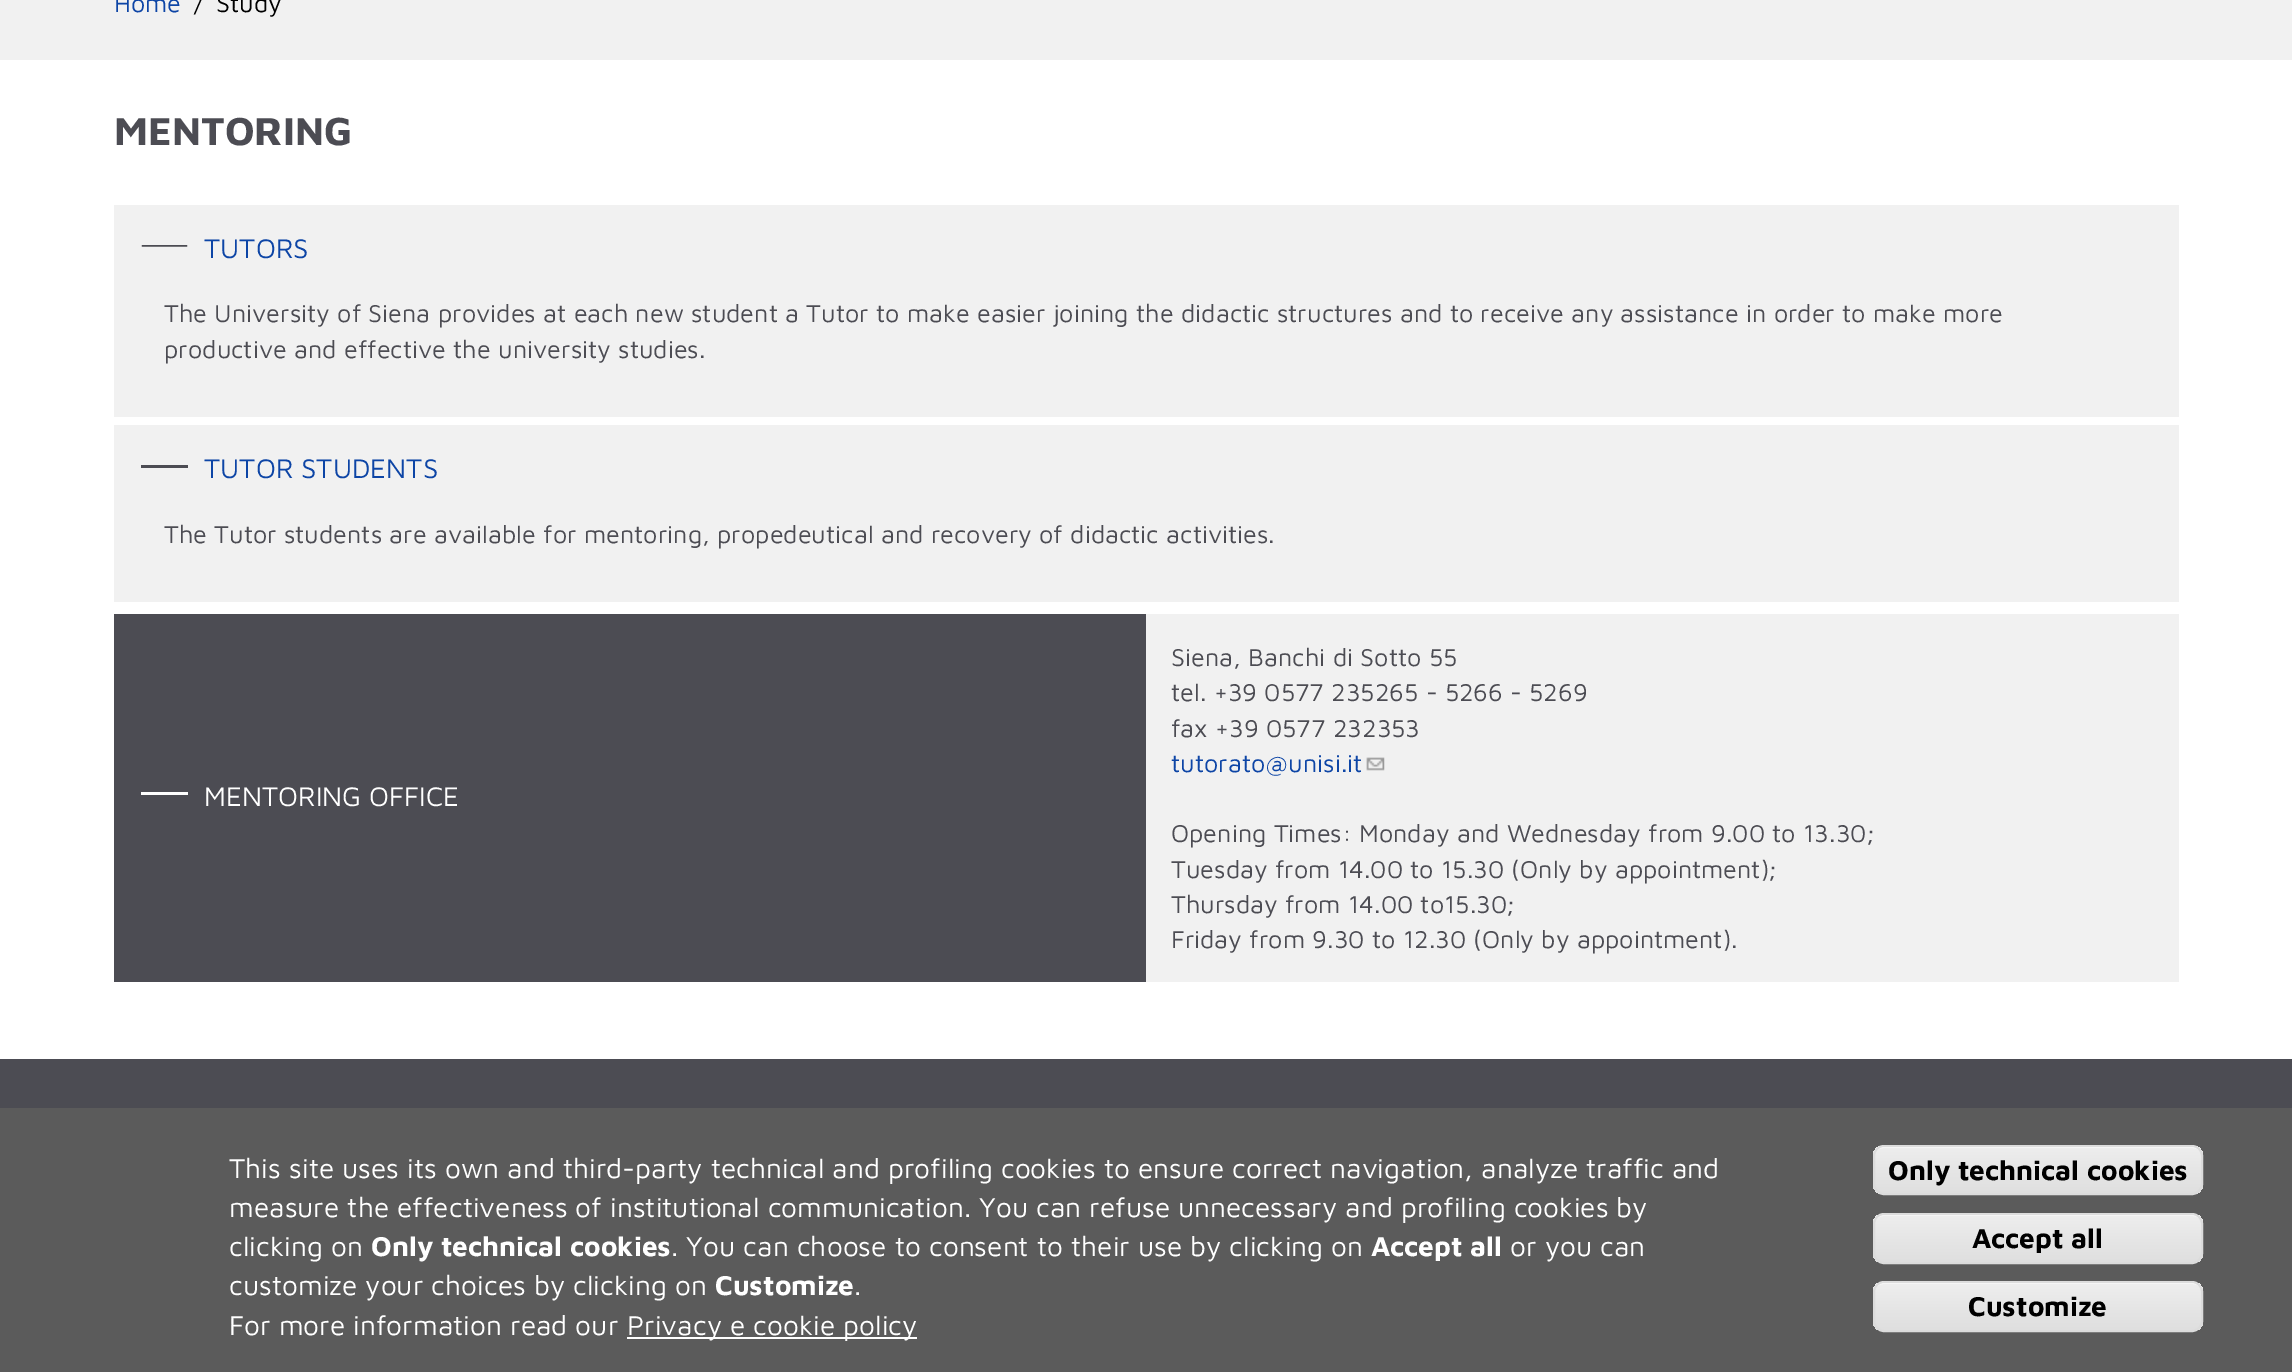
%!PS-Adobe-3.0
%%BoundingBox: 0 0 2292 1372
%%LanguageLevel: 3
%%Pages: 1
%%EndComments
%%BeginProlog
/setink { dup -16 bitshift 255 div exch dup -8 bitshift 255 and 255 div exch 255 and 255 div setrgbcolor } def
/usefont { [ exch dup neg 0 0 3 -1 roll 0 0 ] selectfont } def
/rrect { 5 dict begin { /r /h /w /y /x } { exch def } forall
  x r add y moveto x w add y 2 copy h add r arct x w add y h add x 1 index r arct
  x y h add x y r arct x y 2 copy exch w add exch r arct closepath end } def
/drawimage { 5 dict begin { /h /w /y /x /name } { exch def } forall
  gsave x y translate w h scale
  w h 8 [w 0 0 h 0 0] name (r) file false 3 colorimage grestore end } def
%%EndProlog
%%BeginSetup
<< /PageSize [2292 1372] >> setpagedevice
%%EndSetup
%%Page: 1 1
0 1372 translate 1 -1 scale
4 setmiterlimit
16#FFFFFF setink
0 0 2292 1372 rectfill
16#F1F1F1 setink
0 0 2292 60 rectfill
/MavenPro-Regular 25.2 usefont
16#0D45A6 setink
114 12 moveto (Home) show
16#000000 setink
194 12 moveto (/) show
216 12 moveto (Study) show
/MavenPro-Bold 40.25 usefont
16#4C4C53 setink
114 145 moveto (MENTORING) show
16#F1F1F1 setink
114 205 2065 212 rectfill
(img1.raw) 141 245 47 2 drawimage
/MavenPro-Regular 27.75 usefont
16#0D45A6 setink
204 258 moveto (TUTORS) show
/MavenPro-Regular 25.2 usefont
16#4C4C53 setink
164 322 moveto (The University of Siena provides at each new student a Tutor to make easier joining the didactic structures and to receive any assistance in order to make more) show
164 358 moveto (productive and effective the university studies.) show
16#F1F1F1 setink
114 425 2065 177 rectfill
16#4C4C53 setink
141 465 47 3 rectfill
/MavenPro-Regular 27.75 usefont
16#0D45A6 setink
204 478 moveto (TUTOR STUDENTS) show
/MavenPro-Regular 25.2 usefont
16#4C4C53 setink
164 543 moveto (The Tutor students are available for mentoring, propedeutical and recovery of didactic activities.) show
114 614 1032 368 rectfill
16#FFFFFF setink
141 792 47 3 rectfill
/MavenPro-Regular 27.75 usefont
204 806 moveto (MENTORING OFFICE) show
16#F1F1F1 setink
1146 614 1033 368 rectfill
/MavenPro-Regular 25.2 usefont
16#4C4C53 setink
[
    [(Siena, Banchi di Sotto 55) 1171 666]
    [(tel. +39 0577 235265 - 5266 - 5269) 1171 701]
    [(fax +39 0577 232353) 1171 737]
] { aload pop moveto show } forall
16#0D45A6 setink
1171 772 moveto (tutorato@unisi.it) show
(img2.raw) 1366 757 19 14 drawimage
16#4C4C53 setink
[
    [(Opening Times: Monday and Wednesday from 9.00 to 13.30;) 1171 842]
    [(Tuesday from 14.00 to 15.30 \(Only by appointment\);) 1171 878]
    [(Thursday from 14.00 to15.30;) 1171 913]
    [(Friday from 9.30 to 12.30 \(Only by appointment\).) 1171 948]
] { aload pop moveto show } forall
0 1059 2292 49 rectfill
16#5B5B5B setink
0 1108 2292 264 rectfill
/MavenPro-Regular 28 usefont
16#FFFFFF setink
[
    [(This site uses its own and third-party technical and profiling cookies to ensure correct navigation, analyze traffic and) 229 1178]
    [(measure the effectiveness of institutional communication. You can refuse unnecessary and profiling cookies by) 229 1217]
    [(clicking on) 229 1256]
] { aload pop moveto show } forall
/MavenPro-Bold 28 usefont
371 1256 moveto (Only technical cookies) show
/MavenPro-Regular 28 usefont
671 1256 moveto (. You can choose to consent to their use by clicking on) show
/MavenPro-Bold 28 usefont
1371 1256 moveto (Accept all) show
/MavenPro-Regular 28 usefont
1510 1256 moveto (or you can) show
229 1295 moveto (customize your choices by clicking on) show
/MavenPro-Bold 28 usefont
715 1295 moveto (Customize) show
/MavenPro-Regular 28 usefont
854 1295 moveto (.) show
229 1335 moveto (For more information read our) show
627 1337 290 2 rectfill
627 1335 moveto (Privacy e cookie policy) show
gsave
1873 1145 330 50 11 rrect clip newpath
gsave 1873 1146 moveto 2203 1146 lineto 2203 1194 lineto 1873 1194 lineto closepath clip newpath
<< /ShadingType 2 /ColorSpace /DeviceRGB /Coords [2038 1146 2038 1194] /Extend [true true] /Function << /FunctionType 3 /Domain [0 1] /Functions [<< /FunctionType 2 /Domain [0 1] /C0 [0.929 0.929 0.929] /C1 [0.929 0.929 0.929] /N 1 >> << /FunctionType 2 /Domain [0 1] /C0 [0.929 0.929 0.929] /C1 [0.875 0.875 0.875] /N 1 >>] /Bounds [0.05] /Encode [0 1 0 1] >> >> shfill grestore
grestore
1883 1148 moveto 2193 1148 lineto 2198 1148 2202 1152 2202 1157 curveto 2202 1151 2199 1146 2193 1146 curveto 1881 1146 lineto 1876 1147 1874 1152 1874 1157 curveto 1874 1152 1878 1148 1883 1148 curveto closepath fill
16#DCDCDC setink
2 setlinewidth
1874 1146 328 48 10 rrect stroke
/MavenPro-Bold 28 usefont
16#000000 setink
1888 1180 moveto (Only technical cookies) show
gsave
1873 1213 330 51 11 rrect clip newpath
gsave 1873 1215 moveto 2203 1215 lineto 2203 1262 lineto 1873 1262 lineto closepath clip newpath
<< /ShadingType 2 /ColorSpace /DeviceRGB /Coords [2038 1215 2038 1262] /Extend [true true] /Function << /FunctionType 3 /Domain [0 1] /Functions [<< /FunctionType 2 /Domain [0 1] /C0 [0.929 0.929 0.929] /C1 [0.929 0.929 0.929] /N 1 >> << /FunctionType 2 /Domain [0 1] /C0 [0.929 0.929 0.929] /C1 [0.875 0.875 0.875] /N 1 >>] /Bounds [0.05] /Encode [0 1 0 1] >> >> shfill grestore
grestore
16#FFFFFF setink
1883 1216 moveto 2193 1216 lineto 2198 1216 2202 1220 2202 1225 curveto 2202 1224 lineto 2202 1219 2198 1215 2193 1215 curveto 1883 1215 lineto 1878 1215 1874 1219 1874 1224 curveto 1874 1225 lineto 1874 1220 1878 1216 1883 1216 curveto closepath fill
16#DCDCDC setink
1874 1214 328 49 10 rrect stroke
16#000000 setink
1972 1248 moveto (Accept all) show
gsave
1873 1281 330 51 11 rrect clip newpath
gsave 1873 1283 moveto 2203 1283 lineto 2203 1330 lineto 1873 1330 lineto closepath clip newpath
<< /ShadingType 2 /ColorSpace /DeviceRGB /Coords [2038 1283 2038 1330] /Extend [true true] /Function << /FunctionType 3 /Domain [0 1] /Functions [<< /FunctionType 2 /Domain [0 1] /C0 [0.929 0.929 0.929] /C1 [0.929 0.929 0.929] /N 1 >> << /FunctionType 2 /Domain [0 1] /C0 [0.929 0.929 0.929] /C1 [0.875 0.875 0.875] /N 1 >>] /Bounds [0.05] /Encode [0 1 0 1] >> >> shfill grestore
grestore
16#FFFFFF setink
1883 1284 moveto 2193 1284 lineto 2198 1284 2202 1288 2202 1293 curveto 2202 1292 lineto 2202 1287 2198 1283 2193 1283 curveto 1883 1283 lineto 1878 1283 1874 1287 1874 1292 curveto 1874 1293 lineto 1874 1288 1878 1284 1883 1284 curveto closepath fill
16#DCDCDC setink
1874 1282 328 49 10 rrect stroke
16#000000 setink
1968 1316 moveto (Customize) show
showpage
%%EOF
